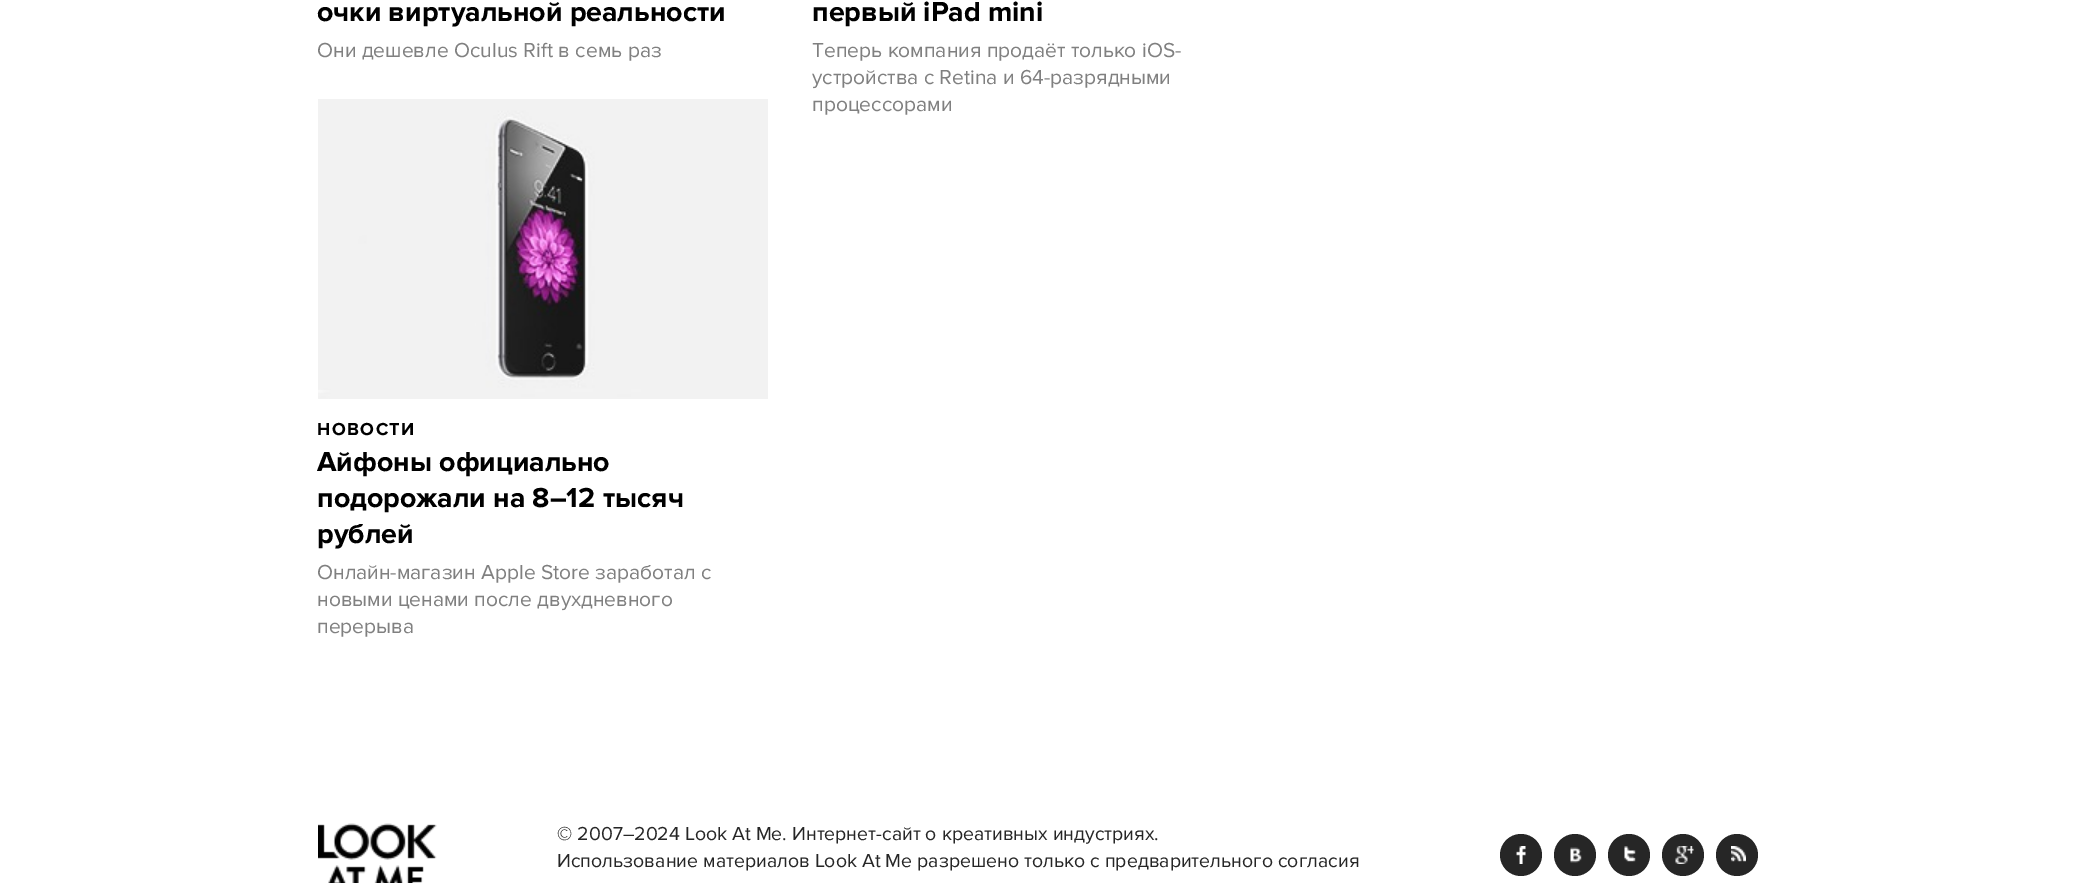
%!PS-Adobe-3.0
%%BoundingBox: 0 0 2074 883
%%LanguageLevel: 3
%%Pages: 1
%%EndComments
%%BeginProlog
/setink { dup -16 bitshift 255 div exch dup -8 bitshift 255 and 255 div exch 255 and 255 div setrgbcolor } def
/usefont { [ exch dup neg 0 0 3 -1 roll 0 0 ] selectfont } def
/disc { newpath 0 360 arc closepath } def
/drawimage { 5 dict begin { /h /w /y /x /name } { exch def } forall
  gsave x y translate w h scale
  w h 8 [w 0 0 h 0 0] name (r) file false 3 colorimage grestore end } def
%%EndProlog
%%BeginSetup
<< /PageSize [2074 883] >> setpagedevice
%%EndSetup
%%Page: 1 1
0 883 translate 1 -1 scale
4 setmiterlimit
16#FFFFFF setink
0 0 2074 883 rectfill
/ProximaNova-Bold 28.5 usefont
16#000000 setink
317 21 moveto (очки виртуальной реальности) show
/ProximaNova-Regular 21 usefont
16#808080 setink
317 57 moveto (Они дешевле Oculus Rift в семь раз) show
(img1.raw) 318 99 450 300 drawimage
/ProximaNova-Bold 18 usefont
16#000000 setink
317 435 moveto 1.5 0 (НОВОСТИ) ashow
/ProximaNova-Bold 28.5 usefont
[
    [(Айфоны официально) 317 471]
    [(подорожали на 8–12 тысяч) 317 507]
    [(рублей) 317 543]
] { aload pop moveto show } forall
/ProximaNova-Regular 21 usefont
16#808080 setink
[
    [(Онлайн-магазин Apple Store заработал с) 317 579]
    [(новыми ценами после двухдневного) 317 606]
    [(перерыва) 317 633]
] { aload pop moveto show } forall
/ProximaNova-Bold 28.5 usefont
16#000000 setink
812 21 moveto (первый iPad mini) show
/ProximaNova-Regular 21 usefont
16#808080 setink
[
    [(Теперь компания продаёт только iOS-) 812 57]
    [(устройства с Retina и 64-разрядными) 812 84]
    [(процессорами) 812 111]
] { aload pop moveto show } forall
(img2.raw) 318 823 119 60 drawimage
/ProximaNova-Regular 19.5 usefont
16#262626 setink
557 840 moveto (© 2007–2024 Look At Me. Интернет-сайт о креативных индустриях.) show
557 867 moveto (Использование материалов Look At Me разрешено только с предварительного согласия) show
1521 855 21 disc fill
(img3.raw) 1516 846 10 18 drawimage
1575 855 21 disc fill
(img4.raw) 1570 847 12 16 drawimage
1629 855 21 disc fill
(img5.raw) 1624 846 12 16 drawimage
1683 855 21 disc fill
(img6.raw) 1675 846 19 18 drawimage
1737 855 21 disc fill
(img7.raw) 1731 846 15 16 drawimage
showpage
%%EOF
